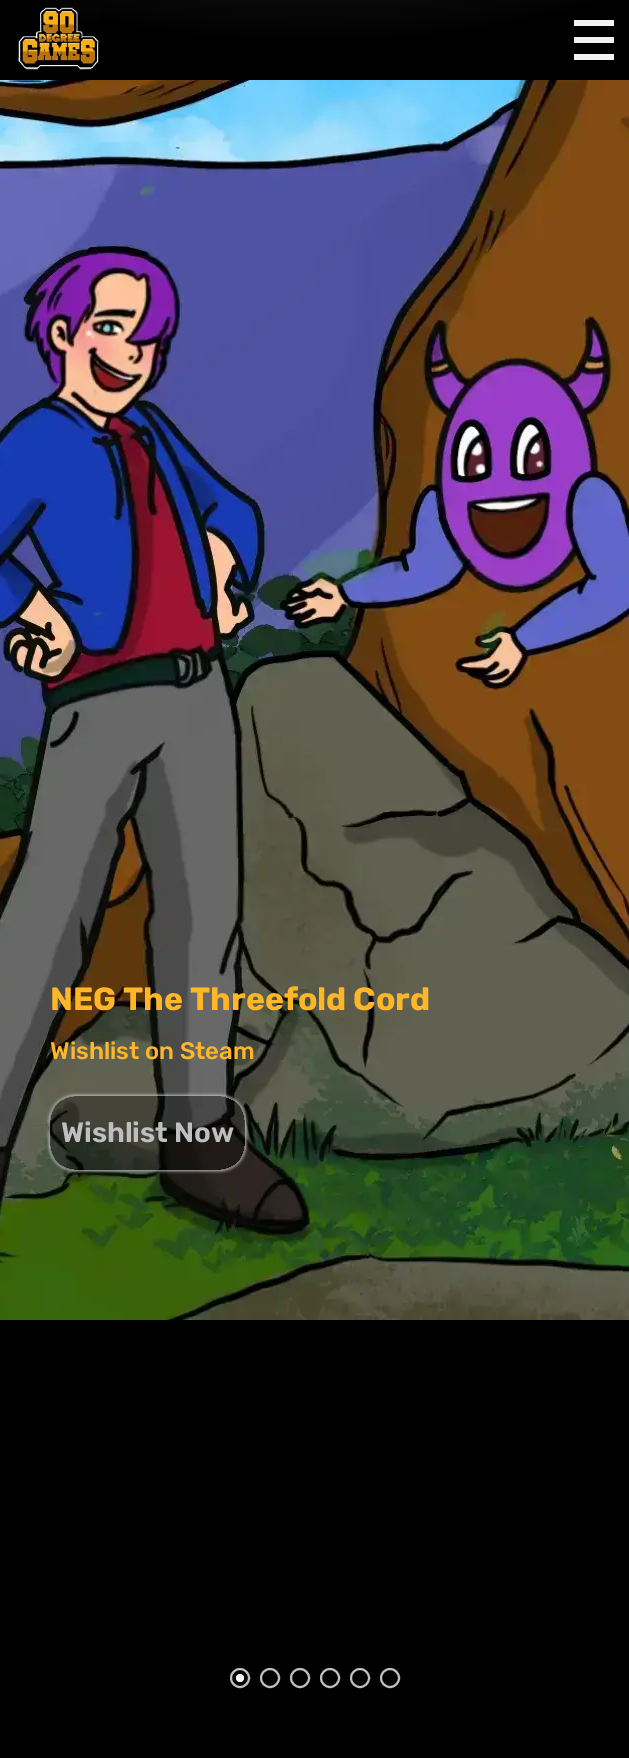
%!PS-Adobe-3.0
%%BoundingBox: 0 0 629 1758
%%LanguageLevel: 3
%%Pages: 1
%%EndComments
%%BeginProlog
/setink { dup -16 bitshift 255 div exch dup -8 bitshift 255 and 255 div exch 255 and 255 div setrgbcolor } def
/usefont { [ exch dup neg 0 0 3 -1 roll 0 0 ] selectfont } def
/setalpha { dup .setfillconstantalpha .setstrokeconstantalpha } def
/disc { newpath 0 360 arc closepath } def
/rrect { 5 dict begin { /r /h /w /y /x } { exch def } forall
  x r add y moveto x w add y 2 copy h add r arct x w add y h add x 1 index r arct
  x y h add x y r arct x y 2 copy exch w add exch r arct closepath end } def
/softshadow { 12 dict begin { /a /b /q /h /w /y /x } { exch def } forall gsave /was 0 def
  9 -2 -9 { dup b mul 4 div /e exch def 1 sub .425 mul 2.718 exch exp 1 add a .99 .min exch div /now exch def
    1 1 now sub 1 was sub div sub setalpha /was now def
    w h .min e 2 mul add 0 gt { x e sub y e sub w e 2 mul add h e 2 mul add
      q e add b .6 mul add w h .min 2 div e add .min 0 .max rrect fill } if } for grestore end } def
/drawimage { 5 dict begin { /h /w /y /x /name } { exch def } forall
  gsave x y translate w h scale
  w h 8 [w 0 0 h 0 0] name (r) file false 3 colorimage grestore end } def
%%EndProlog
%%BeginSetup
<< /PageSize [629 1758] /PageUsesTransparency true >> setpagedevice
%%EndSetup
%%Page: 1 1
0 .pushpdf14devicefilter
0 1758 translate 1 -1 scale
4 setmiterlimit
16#FFFFFF setink
0 0 629 1758 rectfill
gsave 0 0 moveto 629 0 lineto 629 1758 lineto 0 1758 lineto closepath clip newpath 315 -966 translate 1016 1016 scale
<< /ShadingType 3 /ColorSpace /DeviceRGB /Coords [0 0 0 0 0 1] /Extend [true true] /Function << /FunctionType 2 /Domain [0 1] /C0 [0.749 0.749 0.749] /C1 [0 0 0] /N 1 >> >> shfill grestore
(img1.raw) 18 7 81 63 drawimage
[
    [574 20 40 6 16#F2F2F2]
    [574 37 40 6 16#F2F2F2]
    [574 54 40 6 16#F2F2F2]
] { aload pop setink rectfill } forall
(img2.raw) 0 80 629 1240 drawimage
/Rubik-Bold 32 usefont
16#FFB627 setink
50 1010 moveto (NEG The Threefold Cord) show
/Rubik-Medium 24 usefont
50 1059 moveto (Wishlist on Steam) show
gsave
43 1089 moveto 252 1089 lineto 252 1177 lineto 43 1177 lineto closepath 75 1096 moveto 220 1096 lineto 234 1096 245 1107 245 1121 curveto 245 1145 lineto 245 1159 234 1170 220 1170 curveto 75 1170 lineto 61 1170 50 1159 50 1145 curveto 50 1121 lineto 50 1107 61 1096 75 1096 curveto closepath eoclip newpath
16#BFBFBF setink
49 1095 197 76 26 1.5 1 softshadow
grestore
0.3 setalpha
16#000000 setink
50 1096 195 74 25 rrect fill
/Rubik-SemiBold 28 usefont
1 setalpha
16#BFBFBF setink
61 1142 moveto (Wishlist Now) show
2 setlinewidth
240 1678 9 disc stroke
16#F6F9F9 setink
240 1678 4 disc fill
16#BFBFBF setink
270 1678 9 disc stroke
300 1678 9 disc stroke
330 1678 9 disc stroke
360 1678 9 disc stroke
390 1678 9 disc stroke
.poppdf14devicefilter showpage
%%EOF
